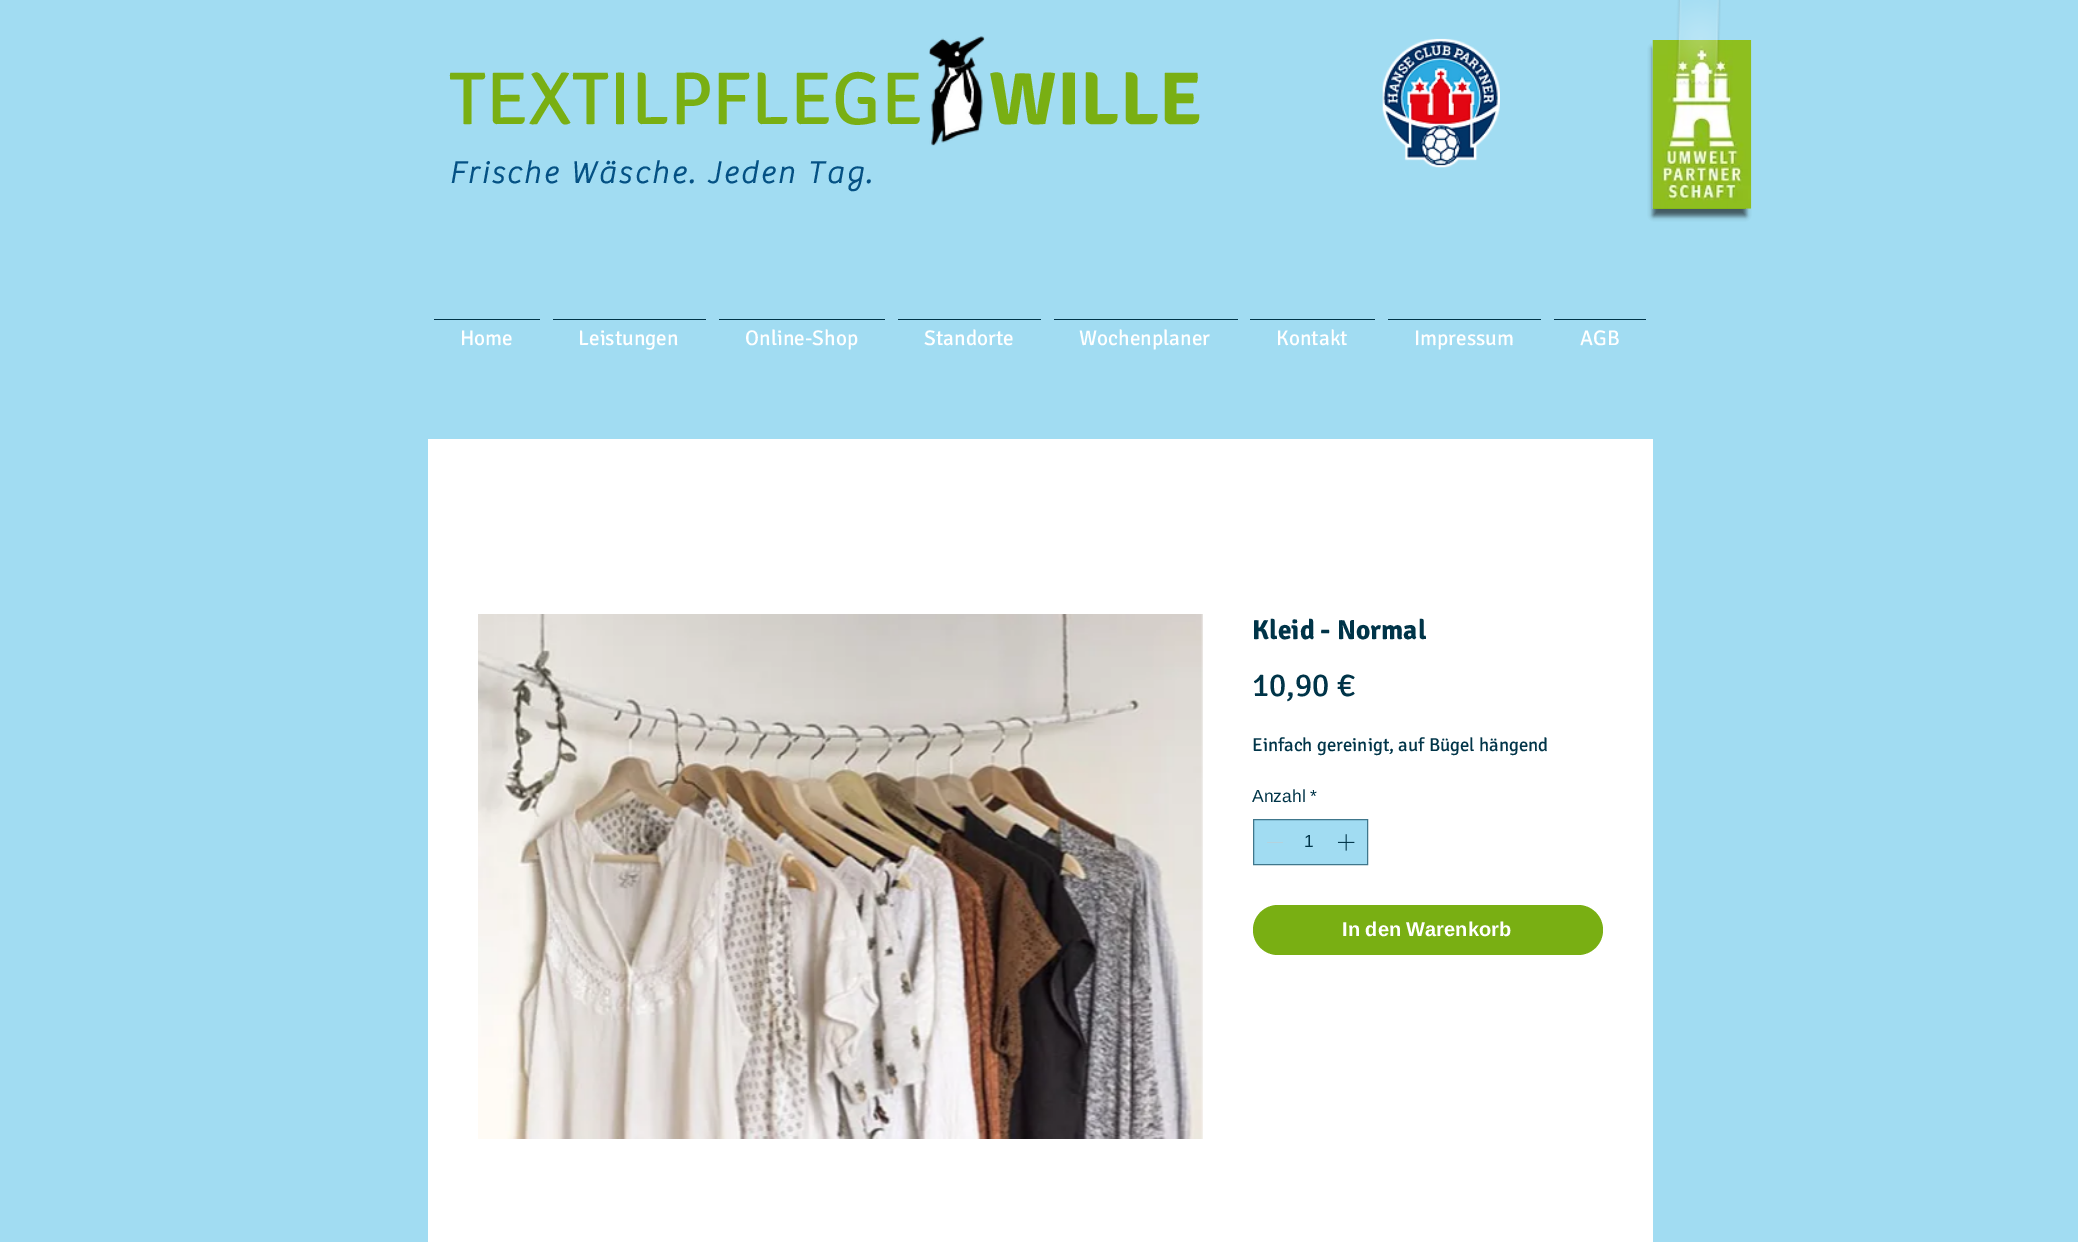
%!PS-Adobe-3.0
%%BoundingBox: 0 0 2078 1242
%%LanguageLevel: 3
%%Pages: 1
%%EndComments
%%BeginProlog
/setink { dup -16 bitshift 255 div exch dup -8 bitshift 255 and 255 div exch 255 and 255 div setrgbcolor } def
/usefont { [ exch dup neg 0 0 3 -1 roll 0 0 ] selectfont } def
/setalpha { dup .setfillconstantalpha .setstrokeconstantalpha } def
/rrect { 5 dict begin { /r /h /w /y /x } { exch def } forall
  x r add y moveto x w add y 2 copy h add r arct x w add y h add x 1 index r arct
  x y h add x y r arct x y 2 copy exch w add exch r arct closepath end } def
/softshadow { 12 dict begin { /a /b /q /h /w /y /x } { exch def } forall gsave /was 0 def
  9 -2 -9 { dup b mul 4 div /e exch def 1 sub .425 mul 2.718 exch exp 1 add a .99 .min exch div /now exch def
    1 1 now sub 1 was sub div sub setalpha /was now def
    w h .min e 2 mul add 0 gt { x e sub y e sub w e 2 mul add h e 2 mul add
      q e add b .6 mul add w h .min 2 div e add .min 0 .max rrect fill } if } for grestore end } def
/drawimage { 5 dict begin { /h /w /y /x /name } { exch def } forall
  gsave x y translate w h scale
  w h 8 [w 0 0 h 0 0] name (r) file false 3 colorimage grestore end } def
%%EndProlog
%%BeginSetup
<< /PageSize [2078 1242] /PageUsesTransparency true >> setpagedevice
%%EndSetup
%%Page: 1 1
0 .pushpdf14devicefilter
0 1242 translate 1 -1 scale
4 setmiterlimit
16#A1DCF2 setink
0 0 2078 1242 rectfill
(img1.raw) 929 36 56 110 drawimage
(img2.raw) 1382 38 118 130 drawimage
16#000000 setink
1653 48 93 168 0 2.5 0.6 softshadow
16#79AF13 setink
1653 208 93 1 rectfill
(img4.raw) 1652 40 100 169 drawimage
(img3.raw) 1676 0 45 86 drawimage
/Signika-Regular 75 usefont
449 124 moveto (TEXTILPFLEGE) show
/Signika-Bold 75 usefont
989 124 moveto (WILLE) show
/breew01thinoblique-Bold 31.25 usefont
16#045184 setink
449 183 moveto 3.1 0 (Frische Wäsche. Jeden Tag.) ashow
16#003448 setink
434 319 106 1 rectfill
/Signika-Regular 21.25 usefont
16#FFFFFF setink
460 345 moveto (Home) show
16#003448 setink
553 319 153 1 rectfill
16#FFFFFF setink
578 345 moveto (Leistungen) show
16#003448 setink
719 319 166 1 rectfill
16#FFFFFF setink
745 345 moveto (Online-Shop) show
16#003448 setink
898 319 143 1 rectfill
16#FFFFFF setink
924 345 moveto (Standorte) show
16#003448 setink
1054 319 184 1 rectfill
16#FFFFFF setink
1079 345 moveto (Wochenplaner) show
16#003448 setink
1250 319 125 1 rectfill
16#FFFFFF setink
1276 345 moveto (Kontakt) show
16#003448 setink
1388 319 153 1 rectfill
16#FFFFFF setink
1414 345 moveto (Impressum) show
16#003448 setink
1554 319 92 1 rectfill
16#FFFFFF setink
1580 345 moveto (AGB) show
428 439 1225 803 rectfill
(img5.raw) 478 614 725 525 drawimage
/Signika-Bold 27.5 usefont
16#003448 setink
1252 639 moveto (Kleid - Normal) show
/Signika-Regular 32.5 usefont
1252 696 moveto (10,90 €) show
/Signika-Regular 18.75 usefont
1252 751 moveto (Einfach gereinigt, auf Bügel hängend) show
/LiberationSans-Regular 17.5 usefont
1252 802 moveto (Anzahl *) show
16#A1DCF2 setink
1253.5 819.5 moveto 1367.5 819.5 lineto 1367.5 864.5 lineto 1253.5 864.5 lineto closepath gsave fill grestore
16#40778C setink
stroke
16#B4D2DD setink
1267 842 16 1 rectfill
16#003448 setink
1304 847 moveto (1) show
(img6.raw) 1337 834 18 17 drawimage
16#79AF13 setink
1253 905 350 50 25 rrect fill
/LiberationSans-Bold 20 usefont
16#FFFFFF setink
1342 936 moveto (In den Warenkorb) show
.poppdf14devicefilter showpage
%%EOF
